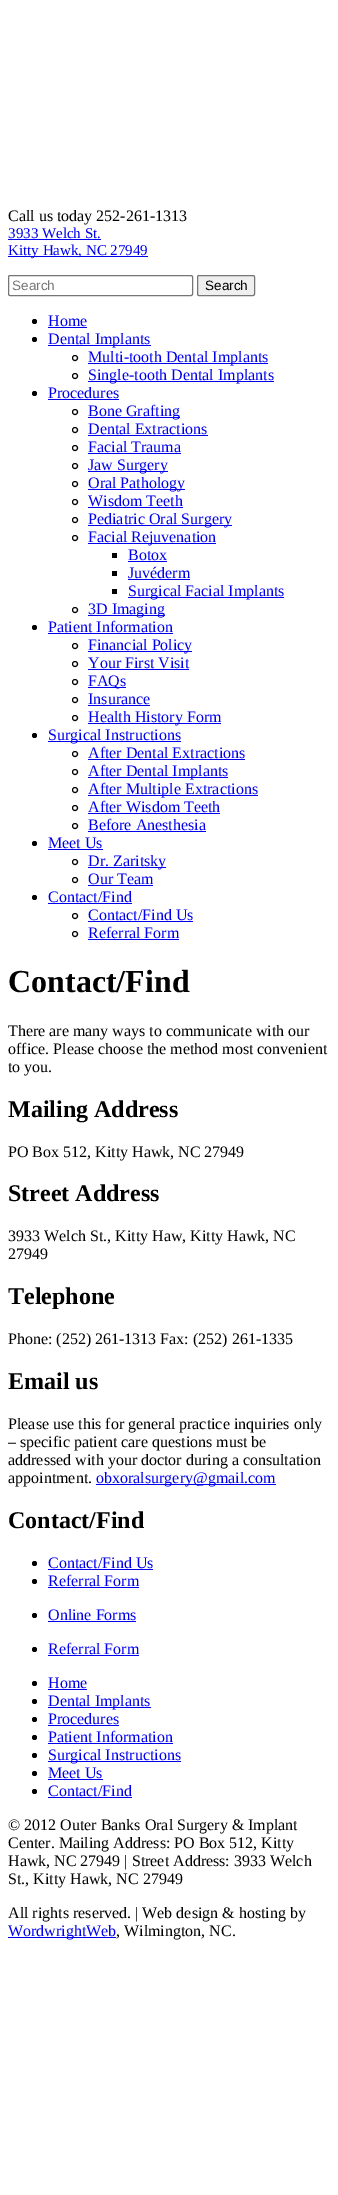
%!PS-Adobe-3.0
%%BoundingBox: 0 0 338 2195
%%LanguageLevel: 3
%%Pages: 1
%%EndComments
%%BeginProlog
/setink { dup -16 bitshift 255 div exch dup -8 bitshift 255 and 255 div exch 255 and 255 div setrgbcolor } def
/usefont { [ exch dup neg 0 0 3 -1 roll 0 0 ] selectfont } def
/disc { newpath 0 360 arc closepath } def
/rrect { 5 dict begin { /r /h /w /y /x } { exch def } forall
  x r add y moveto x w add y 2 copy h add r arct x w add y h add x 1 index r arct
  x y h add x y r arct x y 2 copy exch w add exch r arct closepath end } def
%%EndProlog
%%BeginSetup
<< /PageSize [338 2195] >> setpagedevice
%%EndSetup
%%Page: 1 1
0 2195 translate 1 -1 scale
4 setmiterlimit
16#FFFFFF setink
0 0 338 2195 rectfill
/LiberationSerif-Regular 16 usefont
16#000000 setink
8 221 moveto (Call us today 252-261-1313) show
/LiberationSerif-Regular 15 usefont
16#0000EE setink
8 238 moveto (3933 Welch St.) show
8 239 93 1 rectfill
8 256 140 1 rectfill
8 255 moveto (Kitty Hawk, NC 27949) show
16#767676 setink
8.5 275.5 184 20 1.5 rrect stroke
/LiberationSans-Regular 13.5 usefont
16#757575 setink
12 290 moveto (Search) show
16#EFEFEF setink
197.5 275.5 57 20 1.5 rrect gsave fill grestore
16#767676 setink
stroke
16#000000 setink
205 290 moveto (Search) show
34.5 321.5 2.5 disc fill
/LiberationSerif-Regular 16 usefont
16#0000EE setink
48 326 moveto (Home) show
48 327 39 1 rectfill
16#000000 setink
34.5 339.5 2.5 disc fill
16#0000EE setink
48 345 103 1 rectfill
48 344 moveto (Dental Implants) show
16#000000 setink
75 358 2.5 disc stroke
16#0000EE setink
88 363 180 1 rectfill
88 362 moveto (Multi-tooth Dental Implants) show
16#000000 setink
75 376 2.5 disc stroke
16#0000EE setink
88 381 186 1 rectfill
88 380 moveto (Single-tooth Dental Implants) show
16#000000 setink
34.5 393.5 2.5 disc fill
16#0000EE setink
48 398 moveto (Procedures) show
48 399 71 1 rectfill
16#000000 setink
75 412 2.5 disc stroke
16#0000EE setink
88 417 92 1 rectfill
88 416 moveto (Bone Grafting) show
16#000000 setink
75 430 2.5 disc stroke
16#0000EE setink
88 434 moveto (Dental Extractions) show
88 435 120 1 rectfill
16#000000 setink
75 448 2.5 disc stroke
16#0000EE setink
88 452 moveto (Facial Trauma) show
88 453 93 1 rectfill
16#000000 setink
75 466 2.5 disc stroke
16#0000EE setink
88 471 80 1 rectfill
88 470 moveto (Jaw Surgery) show
16#000000 setink
75 484 2.5 disc stroke
16#0000EE setink
88 489 97 1 rectfill
88 488 moveto (Oral Pathology) show
16#000000 setink
75 502 2.5 disc stroke
16#0000EE setink
88 506 moveto (Wisdom Teeth) show
88 507 95 1 rectfill
16#000000 setink
75 520 2.5 disc stroke
16#0000EE setink
88 525 144 1 rectfill
88 524 moveto (Pediatric Oral Surgery) show
16#000000 setink
75 538 2.5 disc stroke
16#0000EE setink
88 543 128 1 rectfill
88 542 moveto (Facial Rejuvenation) show
16#000000 setink
112 553 5 5 rectfill
16#0000EE setink
128 560 moveto (Botox) show
128 561 39 1 rectfill
16#000000 setink
112 571 5 5 rectfill
16#0000EE setink
128 578 moveto (Juvéderm) show
[
    [128 579 62 1 16#0000EE]
    [112 589 5 5 16#000000]
    [128 597 156 1 16#0000EE]
] { aload pop setink rectfill } forall
128 596 moveto (Surgical Facial Implants) show
16#000000 setink
75 610 2.5 disc stroke
16#0000EE setink
88 615 77 1 rectfill
88 614 moveto (3D Imaging) show
16#000000 setink
34.5 627.5 2.5 disc fill
16#0000EE setink
48 632 moveto (Patient Information) show
48 633 125 1 rectfill
16#000000 setink
75 646 2.5 disc stroke
16#0000EE setink
88 651 104 1 rectfill
88 650 moveto (Financial Policy) show
16#000000 setink
75 664 2.5 disc stroke
16#0000EE setink
88 668 moveto (Your First Visit) show
88 669 101 1 rectfill
16#000000 setink
75 682 2.5 disc stroke
16#0000EE setink
88 687 38 1 rectfill
88 686 moveto (FAQs) show
16#000000 setink
75 700 2.5 disc stroke
16#0000EE setink
88 704 moveto (Insurance) show
88 705 62 1 rectfill
16#000000 setink
75 718 2.5 disc stroke
16#0000EE setink
88 723 133 1 rectfill
88 722 moveto (Health History Form) show
16#000000 setink
34.5 735.5 2.5 disc fill
16#0000EE setink
48 741 133 1 rectfill
48 740 moveto (Surgical Instructions) show
16#000000 setink
75 754 2.5 disc stroke
16#0000EE setink
88 758 moveto (After Dental Extractions) show
88 759 157 1 rectfill
16#000000 setink
75 772 2.5 disc stroke
16#0000EE setink
88 777 140 1 rectfill
88 776 moveto (After Dental Implants) show
16#000000 setink
75 790 2.5 disc stroke
16#0000EE setink
88 795 170 1 rectfill
88 794 moveto (After Multiple Extractions) show
16#000000 setink
75 808 2.5 disc stroke
16#0000EE setink
88 812 moveto (After Wisdom Teeth) show
88 813 132 1 rectfill
16#000000 setink
75 826 2.5 disc stroke
16#0000EE setink
88 830 moveto (Before Anesthesia) show
88 831 118 1 rectfill
16#000000 setink
34.5 843.5 2.5 disc fill
16#0000EE setink
48 848 moveto (Meet Us) show
48 849 55 1 rectfill
16#000000 setink
75 862 2.5 disc stroke
16#0000EE setink
88 867 78 1 rectfill
88 866 moveto (Dr. Zaritsky) show
16#000000 setink
75 880 2.5 disc stroke
16#0000EE setink
88 884 moveto (Our Team) show
88 885 65 1 rectfill
16#000000 setink
34.5 897.5 2.5 disc fill
16#0000EE setink
48 902 moveto (Contact/Find) show
48 903 84 1 rectfill
16#000000 setink
75 916 2.5 disc stroke
16#0000EE setink
88 920 moveto (Contact/Find Us) show
88 921 105 1 rectfill
16#000000 setink
75 934 2.5 disc stroke
16#0000EE setink
88 938 moveto (Referral Form) show
88 939 91 1 rectfill
/LiberationSerif-Bold 32 usefont
16#000000 setink
8 992 moveto (Contact/Find) show
/LiberationSerif-Regular 16 usefont
[
    [(There are many ways to communicate with our) 8 1036]
    [(office. Please choose the method most convenient) 8 1054]
    [(to you.) 8 1072]
] { aload pop moveto show } forall
/LiberationSerif-Bold 24 usefont
8 1117 moveto (Mailing Address) show
/LiberationSerif-Regular 16 usefont
8 1157 moveto (PO Box 512, Kitty Hawk, NC 27949) show
/LiberationSerif-Bold 24 usefont
8 1201 moveto (Street Address) show
/LiberationSerif-Regular 16 usefont
8 1241 moveto (3933 Welch St., Kitty Haw, Kitty Hawk, NC) show
8 1259 moveto (27949) show
/LiberationSerif-Bold 24 usefont
8 1304 moveto (Telephone) show
/LiberationSerif-Regular 16 usefont
8 1344 moveto (Phone: \(252\) 261-1313 Fax: \(252\) 261-1335) show
/LiberationSerif-Bold 24 usefont
8 1389 moveto (Email us) show
/LiberationSerif-Regular 16 usefont
[
    [(Please use this for general practice inquiries only) 8 1429]
    [(– specific patient care questions must be) 8 1447]
    [(addressed with your doctor during a consultation) 8 1465]
    [(appointment.) 8 1483]
] { aload pop moveto show } forall
16#0000EE setink
96 1484 180 1 rectfill
96 1483 moveto (obxoralsurgery@gmail.com) show
/LiberationSerif-Bold 24 usefont
16#000000 setink
8 1528 moveto (Contact/Find) show
34.5 1563.5 2.5 disc fill
/LiberationSerif-Regular 16 usefont
16#0000EE setink
48 1568 moveto (Contact/Find Us) show
48 1569 105 1 rectfill
16#000000 setink
34.5 1581.5 2.5 disc fill
16#0000EE setink
48 1586 moveto (Referral Form) show
48 1587 91 1 rectfill
16#000000 setink
34.5 1615.5 2.5 disc fill
16#0000EE setink
48 1620 moveto (Online Forms) show
48 1621 88 1 rectfill
16#000000 setink
34.5 1649.5 2.5 disc fill
16#0000EE setink
48 1654 moveto (Referral Form) show
48 1655 91 1 rectfill
16#000000 setink
34.5 1683.5 2.5 disc fill
16#0000EE setink
48 1688 moveto (Home) show
48 1689 39 1 rectfill
16#000000 setink
34.5 1701.5 2.5 disc fill
16#0000EE setink
48 1707 103 1 rectfill
48 1706 moveto (Dental Implants) show
16#000000 setink
34.5 1719.5 2.5 disc fill
16#0000EE setink
48 1724 moveto (Procedures) show
48 1725 71 1 rectfill
16#000000 setink
34.5 1737.5 2.5 disc fill
16#0000EE setink
48 1742 moveto (Patient Information) show
48 1743 125 1 rectfill
16#000000 setink
34.5 1755.5 2.5 disc fill
16#0000EE setink
48 1761 133 1 rectfill
48 1760 moveto (Surgical Instructions) show
16#000000 setink
34.5 1773.5 2.5 disc fill
16#0000EE setink
48 1778 moveto (Meet Us) show
48 1779 55 1 rectfill
16#000000 setink
34.5 1791.5 2.5 disc fill
16#0000EE setink
48 1796 moveto (Contact/Find) show
48 1797 84 1 rectfill
16#000000 setink
[
    [(© 2012 Outer Banks Oral Surgery & Implant) 8 1830]
    [(Center. Mailing Address: PO Box 512, Kitty) 8 1848]
    [(Hawk, NC 27949 | Street Address: 3933 Welch) 8 1866]
    [(St., Kitty Hawk, NC 27949) 8 1884]
    [(All rights reserved. | Web design & hosting by) 8 1918]
] { aload pop moveto show } forall
16#0000EE setink
8 1937 108 1 rectfill
8 1936 moveto (WordwrightWeb) show
16#000000 setink
116 1936 moveto (, Wilmington, NC.) show
showpage
%%EOF
